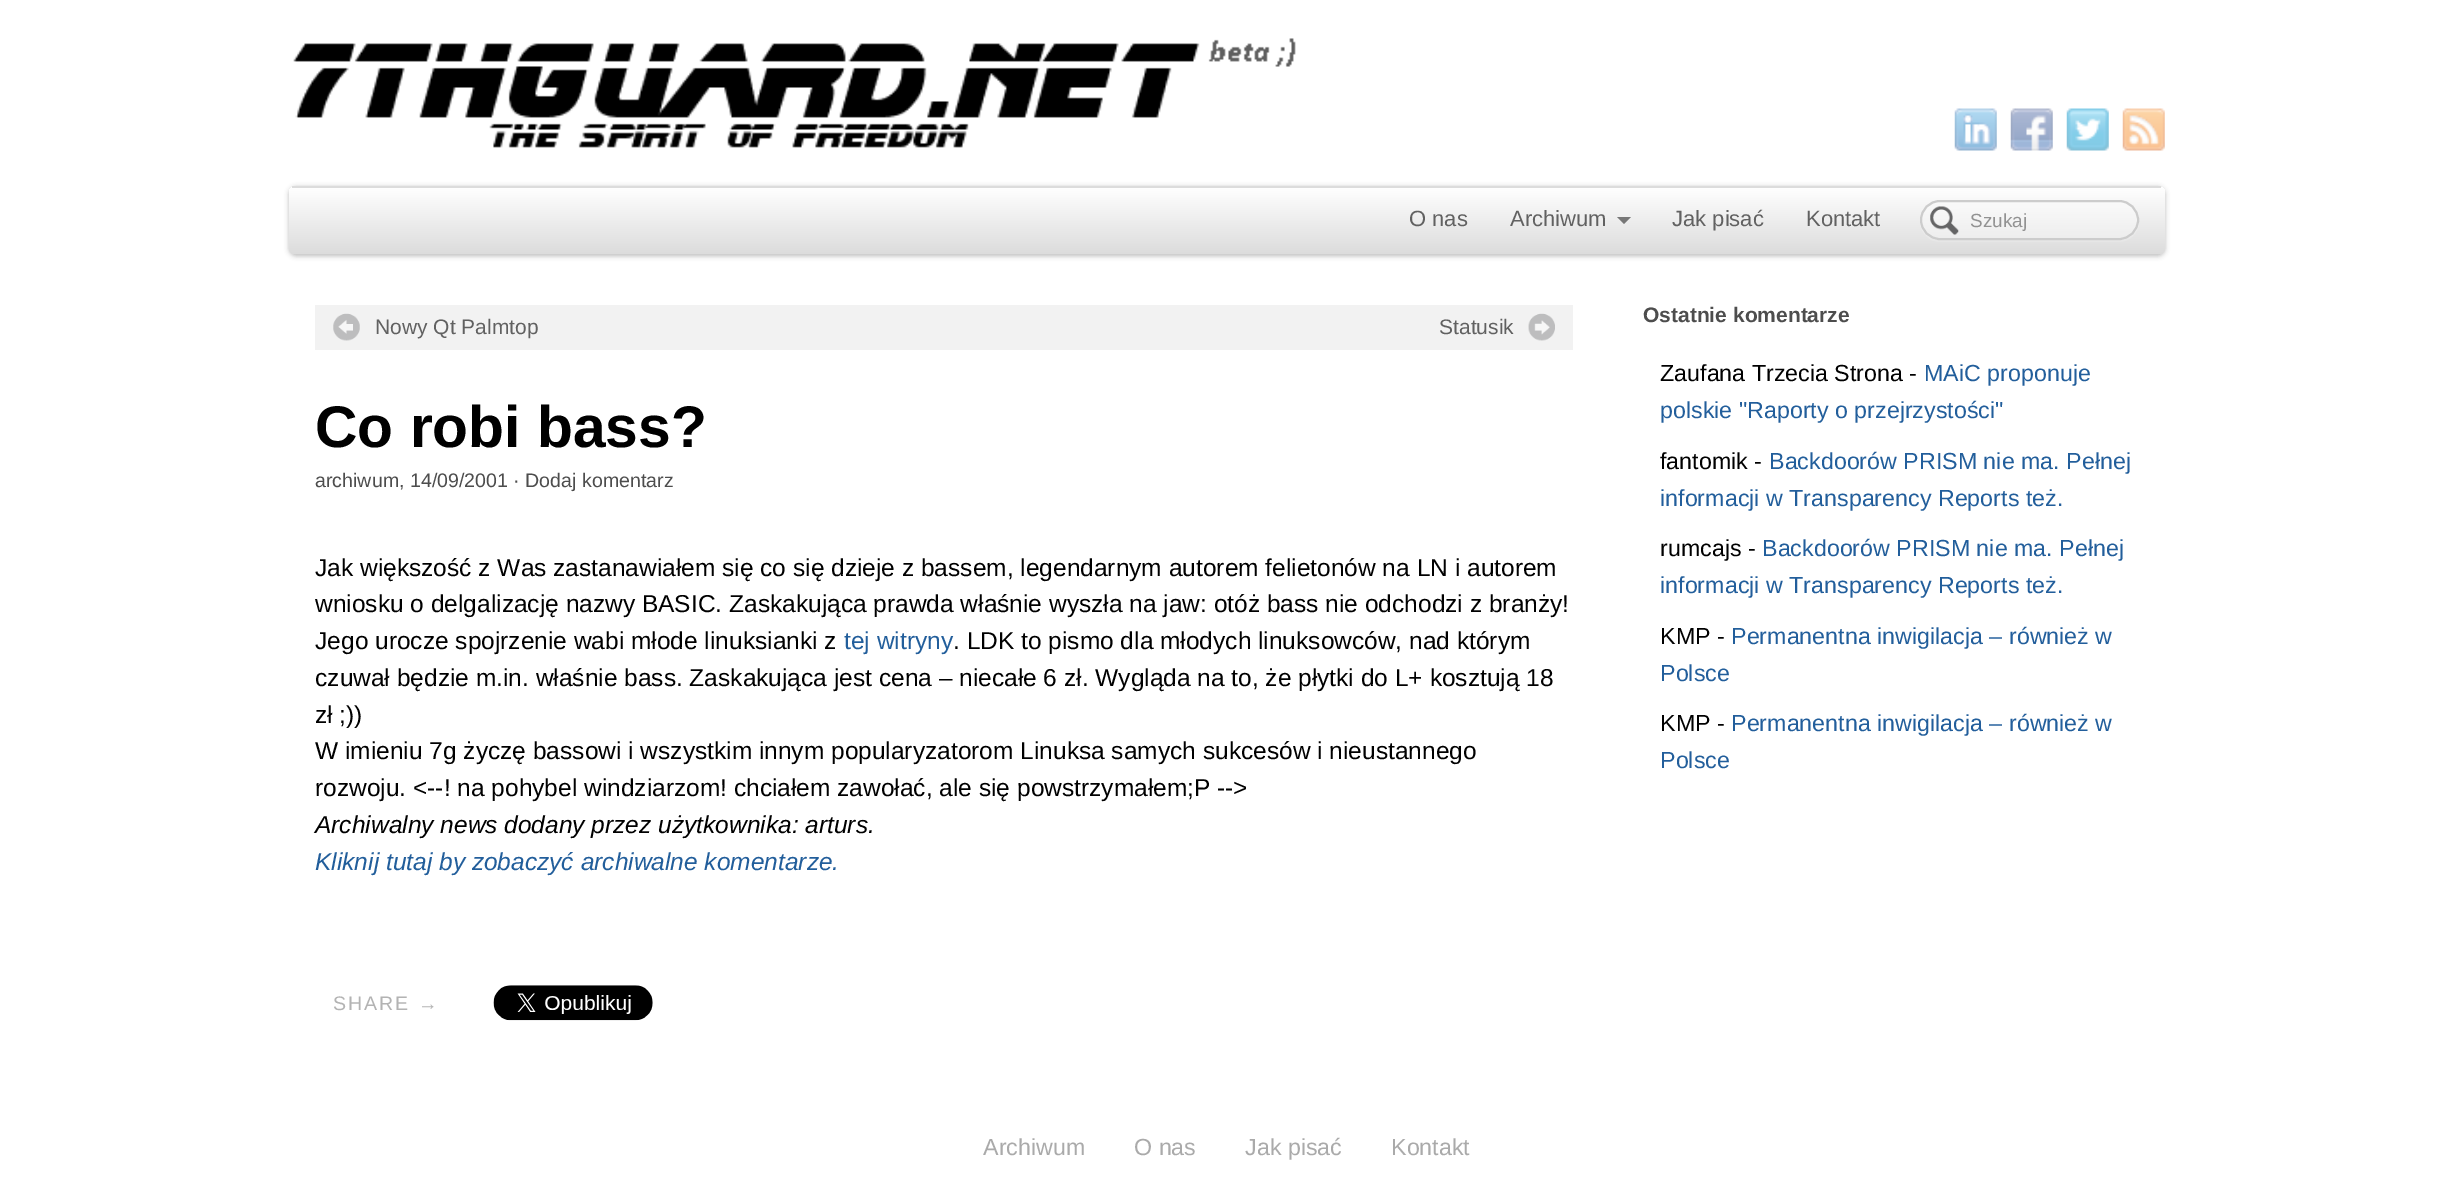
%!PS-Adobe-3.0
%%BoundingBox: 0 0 2453 1192
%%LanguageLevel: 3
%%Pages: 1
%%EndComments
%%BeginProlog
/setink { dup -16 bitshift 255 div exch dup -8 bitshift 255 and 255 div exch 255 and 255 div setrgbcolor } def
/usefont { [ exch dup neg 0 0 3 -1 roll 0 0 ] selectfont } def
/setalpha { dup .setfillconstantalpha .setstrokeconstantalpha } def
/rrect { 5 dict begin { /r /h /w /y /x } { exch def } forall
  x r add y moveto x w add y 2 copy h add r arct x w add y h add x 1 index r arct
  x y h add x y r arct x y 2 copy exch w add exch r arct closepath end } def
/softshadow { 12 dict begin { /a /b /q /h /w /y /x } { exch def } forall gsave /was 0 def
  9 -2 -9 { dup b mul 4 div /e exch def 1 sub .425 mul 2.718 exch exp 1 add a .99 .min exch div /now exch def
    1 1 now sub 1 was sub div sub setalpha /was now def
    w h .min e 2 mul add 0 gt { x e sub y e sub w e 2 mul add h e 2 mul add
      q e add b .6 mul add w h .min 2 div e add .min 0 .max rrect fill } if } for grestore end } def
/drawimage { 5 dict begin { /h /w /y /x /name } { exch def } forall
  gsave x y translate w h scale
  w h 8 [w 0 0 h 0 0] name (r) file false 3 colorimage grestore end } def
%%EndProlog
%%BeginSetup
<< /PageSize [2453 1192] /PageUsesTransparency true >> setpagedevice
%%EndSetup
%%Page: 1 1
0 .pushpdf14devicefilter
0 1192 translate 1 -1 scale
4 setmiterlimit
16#FFFFFF setink
0 0 2453 1192 rectfill
(img1.raw) 293 38 1003 110 drawimage
(img2.raw) 1954 108 43 43 drawimage
(img3.raw) 2010 108 43 43 drawimage
(img4.raw) 2066 108 43 43 drawimage
(img5.raw) 2122 108 43 43 drawimage
16#000000 setink
289 187 1876 69 7 2.5 0.25 softshadow
16#F1F1F1 setink
289 186 1876 68 7 rrect fill
gsave
289 186 1876 68 7 rrect clip newpath
gsave 289 187 moveto 2165 187 lineto 2165 247 lineto 2165 251 2162 254 2158 254 curveto 296 254 lineto 292 254 289 251 289 247 curveto closepath clip newpath
<< /ShadingType 2 /ColorSpace /DeviceRGB /Coords [1227 187 1227 254] /Extend [true true] /Function << /FunctionType 2 /Domain [0 1] /C0 [1 1 1] /C1 [0.863 0.863 0.863] /N 1 >> >> shfill grestore
grestore
16#DCDCDC setink
292 186 1869 2 rectfill
/LiberationSans-Regular 22 usefont
16#616161 setink
1409 226 moveto (O nas) show
1510 226 moveto (Archiwum) show
0.5 setalpha
16#000000 setink
1617 217 moveto 1631 217 lineto 1624 224 lineto closepath fill
1 setalpha
16#616161 setink
1672 226 moveto (Jak pisać) show
1806 226 moveto (Kontakt) show
0.15 setalpha
16#FFFFFF setink
1920 223 moveto 1921 234 1930 242 1940 242 curveto 2118 242 lineto 2130 242 2139 233 2139 222 curveto 2138 215 lineto 2138 220 lineto 2138 231 2129 240 2118 240 curveto 1940 240 lineto 1930 240 1922 233 1920 223 curveto closepath fill
0.35 setalpha
1920 200 219 40 20 rrect fill
1 setalpha
(img6.raw) 1930 206 29 29 drawimage
16#CCCCCC setink
2 setlinewidth
1921 201 217 38 19 rrect stroke
/LiberationSans-Regular 19 usefont
16#929292 setink
1970 227 moveto (Szukaj) show
16#F2F2F2 setink
315 305 1258 45 rectfill
(img7.raw) 333 313 27 28 drawimage
/LiberationSans-Regular 21 usefont
16#616161 setink
375 334 moveto (Nowy Qt Palmtop) show
(img8.raw) 1528 313 27 28 drawimage
1439 334 moveto (Statusik) show
/LiberationSans-Bold 58.75 usefont
16#000000 setink
315 447 moveto (Co robi bass?) show
/LiberationSans-Regular 19.6 usefont
16#4D4D4D setink
315 487 moveto (archiwum, 14/09/2001 · Dodaj komentarz) show
/LiberationSans-Regular 24.5 usefont
16#000000 setink
[
    [(Jak większość z Was zastanawiałem się co się dzieje z bassem, legendarnym autorem felietonów na LN i autorem) 315 576]
    [(wniosku o delgalizację nazwy BASIC. Zaskakująca prawda właśnie wyszła na jaw: otóż bass nie odchodzi z branży!) 315 612]
    [(Jego urocze spojrzenie wabi młode linuksianki z) 315 649]
] { aload pop moveto show } forall
16#225E9B setink
844 649 moveto (tej witryny) show
16#000000 setink
[
    [(. LDK to pismo dla młodych linuksowców, nad którym) 953 649]
    [(czuwał będzie m.in. właśnie bass. Zaskakująca jest cena – niecałe 6 zł. Wygląda na to, że płytki do L+ kosztują 18) 315 686]
    [(zł ;\)\)) 315 723]
    [(W imieniu 7g życzę bassowi i wszystkim innym popularyzatorom Linuksa samych sukcesów i nieustannego) 315 759]
    [(rozwoju. <--! na pohybel windziarzom! chciałem zawołać, ale się powstrzymałem;P -->) 315 796]
] { aload pop moveto show } forall
/LiberationSans-Italic 24.5 usefont
315 833 moveto (Archiwalny news dodany przez użytkownika: arturs.) show
16#225E9B setink
315 870 moveto (Kliknij tutaj by zobaczyć archiwalne komentarze.) show
/LiberationSans-Regular 19.6 usefont
16#B3B3B3 setink
333 1010 moveto 2 0 (SHARE →) ashow
(img9.raw) 493 985 160 36 drawimage
/LiberationSans-Bold 21 usefont
16#4D4D4D setink
1643 322 moveto (Ostatnie komentarze) show
/LiberationSans-Regular 23.25 usefont
16#000000 setink
1660 381 moveto (Zaufana Trzecia Strona -) show
16#225E9B setink
1924 381 moveto (MAiC proponuje) show
1660 418 moveto (polskie "Raporty o przejrzystości") show
16#000000 setink
1660 469 moveto (fantomik -) show
16#225E9B setink
1769 469 moveto (Backdoorów PRISM nie ma. Pełnej) show
1660 506 moveto (informacji w Transparency Reports też.) show
16#000000 setink
1660 556 moveto (rumcajs -) show
16#225E9B setink
1762 556 moveto (Backdoorów PRISM nie ma. Pełnej) show
1660 593 moveto (informacji w Transparency Reports też.) show
16#000000 setink
1660 644 moveto (KMP -) show
16#225E9B setink
1731 644 moveto (Permanentna inwigilacja – również w) show
1660 681 moveto (Polsce) show
16#000000 setink
1660 731 moveto (KMP -) show
16#225E9B setink
1731 731 moveto (Permanentna inwigilacja – również w) show
1660 768 moveto (Polsce) show
16#AAAAAA setink
[
    [(Archiwum) 983 1155]
    [(O nas) 1134 1155]
    [(Jak pisać) 1245 1155]
    [(Kontakt) 1391 1155]
] { aload pop moveto show } forall
.poppdf14devicefilter showpage
%%EOF
